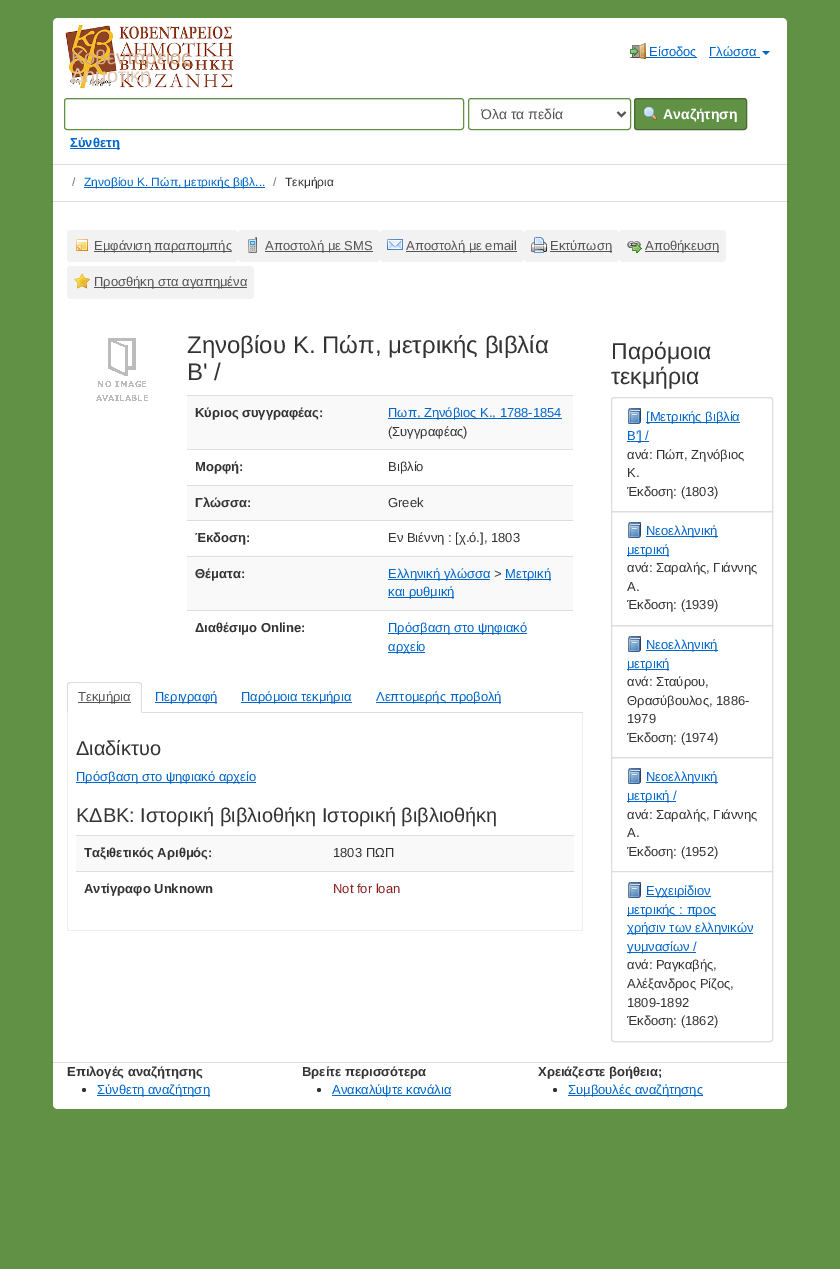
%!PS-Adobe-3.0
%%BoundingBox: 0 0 840 1269
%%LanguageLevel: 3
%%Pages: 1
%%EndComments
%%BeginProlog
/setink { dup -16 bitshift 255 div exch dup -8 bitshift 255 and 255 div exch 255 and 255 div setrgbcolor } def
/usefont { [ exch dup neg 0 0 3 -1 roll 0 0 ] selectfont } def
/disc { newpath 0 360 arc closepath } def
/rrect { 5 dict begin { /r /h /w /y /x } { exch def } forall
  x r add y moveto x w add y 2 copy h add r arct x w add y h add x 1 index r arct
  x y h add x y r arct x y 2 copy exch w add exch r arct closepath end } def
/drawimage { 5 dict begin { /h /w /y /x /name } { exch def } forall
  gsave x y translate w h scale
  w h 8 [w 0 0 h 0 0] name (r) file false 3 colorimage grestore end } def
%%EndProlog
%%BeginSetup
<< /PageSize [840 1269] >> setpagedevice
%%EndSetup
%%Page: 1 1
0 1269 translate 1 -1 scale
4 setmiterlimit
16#619144 setink
0 0 840 1269 rectfill
16#FFFFFF setink
58 18 moveto 782 18 lineto 785 18 787 20 787 23 curveto 787 90 lineto 53 90 lineto 53 23 lineto 53 20 55 18 58 18 curveto closepath fill
(img1.raw) 65 25 169 64 drawimage
/LiberationSans-Regular 20 usefont
16#D2AC8C setink
71 64 moveto (Κοβεντάρειος) show
16#DCC7B5 setink
71 82 moveto (Δημοτική) show
(img2.raw) 630 43 16 16 drawimage
16#0066CC setink
646 57 51 1 rectfill
/LiberationSans-Regular 13 usefont
649 56 moveto (Είσοδος) show
709 56 moveto (Γλώσσα) show
709 57 51 1 rectfill
762 51 moveto 770 51 lineto 766 55 lineto closepath fill
16#FFFFFF setink
53 90 734 74 rectfill
16#ECECEC setink
67 100 moveto 461 100 lineto 462 100 463 101 463 102 curveto 463 101 463 99 461 99 curveto 67 99 lineto 65 100 lineto 65 102 lineto 65 101 66 100 67 100 curveto closepath fill
16#619144 setink
64.5 98.5 399 31 2.5 rrect stroke
16#ECECEC setink
471 100 moveto 628 100 lineto 629 100 630 101 630 102 curveto 630 101 630 99 628 99 curveto 471 99 lineto 469 99 469 101 469 102 curveto 469 101 470 100 471 100 curveto closepath fill
16#619144 setink
468.5 98.5 162 31 2.5 rrect stroke
16#555555 setink
2 setlinewidth
617.5 112 moveto 621.5 116 lineto 625.5 112 lineto stroke
gsave
481 105 125 18 rectclip
/LiberationSans-Regular 14 usefont
481 119 moveto (Όλα τα πεδία) show
grestore
16#619144 setink
634.5 98.5 112 31 2.5 rrect gsave fill grestore
16#456730 setink
1 setlinewidth
stroke
(img3.raw) 644 107 13 14 drawimage
/LiberationSans-Bold 14 usefont
16#FFFFFF setink
663 119 moveto (Αναζήτηση) show
16#0066CC setink
70 148 50 1 rectfill
/LiberationSans-Bold 13 usefont
70 147 moveto (Σύνθετη) show
[
    [53 165 734 36 16#FFFFFF]
    [53 164 734 1 16#DDDDDD]
    [53 201 734 1 16#DDDDDD]
] { aload pop setink rectfill } forall
/LiberationSans-Regular 12 usefont
16#777777 setink
72 186 moveto (/) show
16#0066CC setink
84 187 181 1 rectfill
84 186 moveto (Ζηνοβίου Κ. Πώπ, μετρικής βιβλ...) show
16#777777 setink
273 186 moveto (/) show
16#333333 setink
285 186 moveto (Τεκμήρια) show
16#FFFFFF setink
53 202 734 860 rectfill
16#F2F2F2 setink
67 230 171 32 4 rrect fill
(img4.raw) 76 239 12 12 drawimage
16#555555 setink
94 251 137 1 rectfill
/LiberationSans-Regular 13 usefont
94 250 moveto (Εμφάνιση παραπομπής) show
16#F2F2F2 setink
238 230 142 32 4 rrect fill
(img5.raw) 248 237 9 16 drawimage
16#555555 setink
265 251 108 1 rectfill
265 250 moveto (Αποστολή με SMS) show
16#F2F2F2 setink
380 230 144 32 4 rrect fill
(img6.raw) 387 239 16 11 drawimage
16#555555 setink
406 251 111 1 rectfill
406 250 moveto (Αποστολή με email) show
16#F2F2F2 setink
524 230 95 32 4 rrect fill
(img7.raw) 531 237 16 16 drawimage
16#555555 setink
550 251 62 1 rectfill
550 250 moveto (Εκτύπωση) show
16#F2F2F2 setink
619 230 107 32 4 rrect fill
(img8.raw) 627 241 15 12 drawimage
16#555555 setink
645 251 74 1 rectfill
645 250 moveto (Αποθήκευση) show
16#F2F2F2 setink
67 266 187 33 4 rrect fill
(img9.raw) 74 273 16 16 drawimage
16#555555 setink
94 287 153 1 rectfill
94 286 moveto (Προσθήκη στα αγαπημένα) show
(img10.raw) 96 338 52 63 drawimage
/LiberationSans-Regular 24 usefont
16#333333 setink
187 353 moveto (Ζηνοβίου Κ. Πώπ, μετρικής βιβλία) show
187 380 moveto (Β' /) show
16#F9F9F9 setink
187 396 386 53 rectfill
/LiberationSans-Bold 13 usefont
16#333333 setink
195 417 moveto (Κύριος συγγραφέας:) show
16#DDDDDD setink
187 395 386 1 rectfill
16#0066CC setink
388 418 174 1 rectfill
/LiberationSans-Regular 13 usefont
388 417 moveto (Πωπ, Ζηνόβιος Κ., 1788-1854) show
16#333333 setink
388 436 moveto (\(Συγγραφέας\)) show
/LiberationSans-Bold 13 usefont
195 471 moveto (Μορφή:) show
16#DDDDDD setink
187 449 386 1 rectfill
/LiberationSans-Regular 13 usefont
16#333333 setink
388 471 moveto (Βιβλίο) show
16#F9F9F9 setink
187 486 386 34 rectfill
/LiberationSans-Bold 13 usefont
16#333333 setink
195 507 moveto (Γλώσσα:) show
16#DDDDDD setink
187 485 386 1 rectfill
/LiberationSans-Regular 13 usefont
16#333333 setink
388 507 moveto (Greek) show
/LiberationSans-Bold 13 usefont
195 542 moveto (Έκδοση:) show
16#DDDDDD setink
187 520 386 1 rectfill
/LiberationSans-Regular 13 usefont
16#333333 setink
388 542 moveto (Εν Βιέννη : [χ.ό.], 1803) show
16#F9F9F9 setink
187 557 386 53 rectfill
/LiberationSans-Bold 13 usefont
16#333333 setink
195 578 moveto (Θέματα:) show
16#DDDDDD setink
187 556 386 1 rectfill
16#0066CC setink
388 579 102 1 rectfill
/LiberationSans-Regular 13 usefont
388 578 moveto (Ελληνική γλώσσα) show
16#333333 setink
494 578 moveto (>) show
16#0066CC setink
505 579 46 1 rectfill
505 578 moveto (Μετρική) show
388 597 66 1 rectfill
388 596 moveto (και ρυθμική) show
/LiberationSans-Bold 13 usefont
16#333333 setink
195 632 moveto (Διαθέσιμο Online:) show
16#DDDDDD setink
187 610 386 1 rectfill
16#0066CC setink
388 633 139 1 rectfill
/LiberationSans-Regular 13 usefont
388 632 moveto (Πρόσβαση στο ψηφιακό) show
388 652 37 1 rectfill
388 651 moveto (αρχείο) show
16#DDDDDD setink
142 712 441 1 rectfill
70 682 moveto 68 683 lineto 69 684 lineto 70 683 lineto 139 683 lineto 140 684 lineto 141 683 lineto 139 682 lineto closepath fill
142 713 moveto 142 685 lineto 142 684 142 683 141 683 curveto 140.5 683.5 lineto 141 685 lineto 141 712 lineto closepath fill
67 713 moveto 68 712 lineto 68 685 lineto 68.5 683.5 lineto 68 683 lineto 67 683 67 684 67 685 curveto closepath fill
16#555555 setink
78 702 53 1 rectfill
78 701 moveto (Τεκμήρια) show
16#0066CC setink
155 702 62 1 rectfill
155 701 moveto (Περιγραφή) show
241 702 111 1 rectfill
241 701 moveto (Παρόμοια τεκμήρια) show
376 702 125 1 rectfill
376 701 moveto (Λεπτομερής προβολή) show
[
    [582 713 1 218 16#EEEEEE]
    [67 930 516 1 16#EEEEEE]
    [67 713 1 218 16#EEEEEE]
] { aload pop setink rectfill } forall
/LiberationSans-Regular 20 usefont
16#333333 setink
76 755 moveto (Διαδίκτυο) show
16#0066CC setink
76 782 180 1 rectfill
/LiberationSans-Regular 13 usefont
76 781 moveto (Πρόσβαση στο ψηφιακό αρχείο) show
/LiberationSans-Regular 20 usefont
16#333333 setink
76 822 moveto (ΚΔΒΚ: Ιστορική βιβλιοθήκη Ιστορική βιβλιοθήκη) show
16#F9F9F9 setink
76 836 498 35 rectfill
/LiberationSans-Bold 13 usefont
16#333333 setink
84 857 moveto (Ταξιθετικός Αριθμός:) show
16#DDDDDD setink
76 835 498 1 rectfill
/LiberationSans-Regular 13 usefont
16#333333 setink
333 857 moveto (1803 ΠΩΠ) show
/LiberationSans-Bold 13 usefont
84 893 moveto (Αντίγραφο Unknown) show
16#DDDDDD setink
76 871 498 1 rectfill
/LiberationSans-Regular 13 usefont
16#8A211E setink
333 893 moveto (Not for loan) show
/LiberationSans-Regular 23 usefont
16#333333 setink
611 359 moveto (Παρόμοια) show
611 384 moveto (τεκμήρια) show
16#DDDDDD setink
614 397.5 moveto 770 397.5 lineto 771.5 397.5 772.5 398.5 772.5 400 curveto 772.5 511.5 lineto 611.5 511.5 lineto 611.5 400 lineto 611.5 398.5 612.5 397.5 614 397.5 curveto closepath stroke
(img11.raw) 628 408 13 16 drawimage
16#0066CC setink
646 422 94 1 rectfill
/LiberationSans-Regular 13 usefont
646 421 moveto ([Μετρικής βιβλία) show
627 441 22 1 rectfill
627 440 moveto (Β'] /) show
16#333333 setink
[
    [(ανά: Πώπ, Ζηνόβιος) 627 459]
    [(Κ.) 627 477]
    [(Έκδοση: \(1803\)) 627 496]
] { aload pop moveto show } forall
16#DDDDDD setink
611.5 511.5 161 114 rectstroke
(img11.raw) 628 522 13 16 drawimage
16#0066CC setink
646 536 72 1 rectfill
646 535 moveto (Νεοελληνική) show
627 555 42 1 rectfill
627 554 moveto (μετρική) show
16#333333 setink
[
    [(ανά: Σαραλής, Γιάννης) 627 572]
    [(Α.) 627 591]
    [(Έκδοση: \(1939\)) 627 609]
] { aload pop moveto show } forall
16#DDDDDD setink
611.5 625.5 161 132 rectstroke
(img11.raw) 628 636 13 16 drawimage
16#0066CC setink
646 650 72 1 rectfill
646 649 moveto (Νεοελληνική) show
627 669 42 1 rectfill
627 668 moveto (μετρική) show
16#333333 setink
[
    [(ανά: Σταύρου,) 627 686]
    [(Θρασύβουλος, 1886-) 627 705]
    [(1979) 627 723]
    [(Έκδοση: \(1974\)) 627 742]
] { aload pop moveto show } forall
16#DDDDDD setink
611.5 757.5 161 114 rectstroke
(img11.raw) 628 768 13 16 drawimage
16#0066CC setink
646 782 72 1 rectfill
646 781 moveto (Νεοελληνική) show
627 801 49 1 rectfill
627 800 moveto (μετρική /) show
16#333333 setink
[
    [(ανά: Σαραλής, Γιάννης) 627 819]
    [(Α.) 627 837]
    [(Έκδοση: \(1952\)) 627 856]
] { aload pop moveto show } forall
16#FFFFFF setink
611.5 871.5 moveto 772.5 871.5 lineto 772.5 1039 lineto 772.5 1040.5 771.5 1041.5 770 1041.5 curveto 614 1041.5 lineto 612.5 1041.5 611.5 1040.5 611.5 1039 curveto closepath gsave fill grestore
16#DDDDDD setink
stroke
(img11.raw) 628 882 13 16 drawimage
16#0066CC setink
646 896 65 1 rectfill
646 895 moveto (Εγχειρίδιον) show
627 915 89 1 rectfill
627 914 moveto (μετρικής : προς) show
627 933 126 1 rectfill
627 932 moveto (χρήσιν των ελληνικών) show
627 952 69 1 rectfill
627 951 moveto (γυμνασίων /) show
16#333333 setink
[
    [(ανά: Ραγκαβής,) 627 969]
    [(Αλέξανδρος Ρίζος,) 627 988]
    [(1809-1892) 627 1007]
    [(Έκδοση: \(1862\)) 627 1025]
] { aload pop moveto show } forall
16#FFFFFF setink
53 1062 moveto 787 1062 lineto 787 1104 lineto 787 1107 785 1109 782 1109 curveto 58 1109 lineto 55 1109 53 1107 53 1104 curveto closepath fill
16#DDDDDD setink
53 1062 734 1 rectfill
/LiberationSans-Bold 13 usefont
16#333333 setink
67 1076 moveto (Επιλογές αναζήτησης) show
84 1090 2 disc fill
16#0066CC setink
97 1095 113 1 rectfill
/LiberationSans-Regular 13 usefont
97 1094 moveto (Σύνθετη αναζήτηση) show
/LiberationSans-Bold 13 usefont
16#333333 setink
302 1076 moveto (Βρείτε περισσότερα) show
319 1090 2 disc fill
16#0066CC setink
332 1095 119 1 rectfill
/LiberationSans-Regular 13 usefont
332 1094 moveto (Ανακαλύψτε κανάλια) show
/LiberationSans-Bold 13 usefont
16#333333 setink
538 1076 moveto (Χρειάζεστε βοήθεια;) show
555 1090 2 disc fill
16#0066CC setink
568 1095 135 1 rectfill
/LiberationSans-Regular 13 usefont
568 1094 moveto (Συμβουλές αναζήτησης) show
showpage
%%EOF
